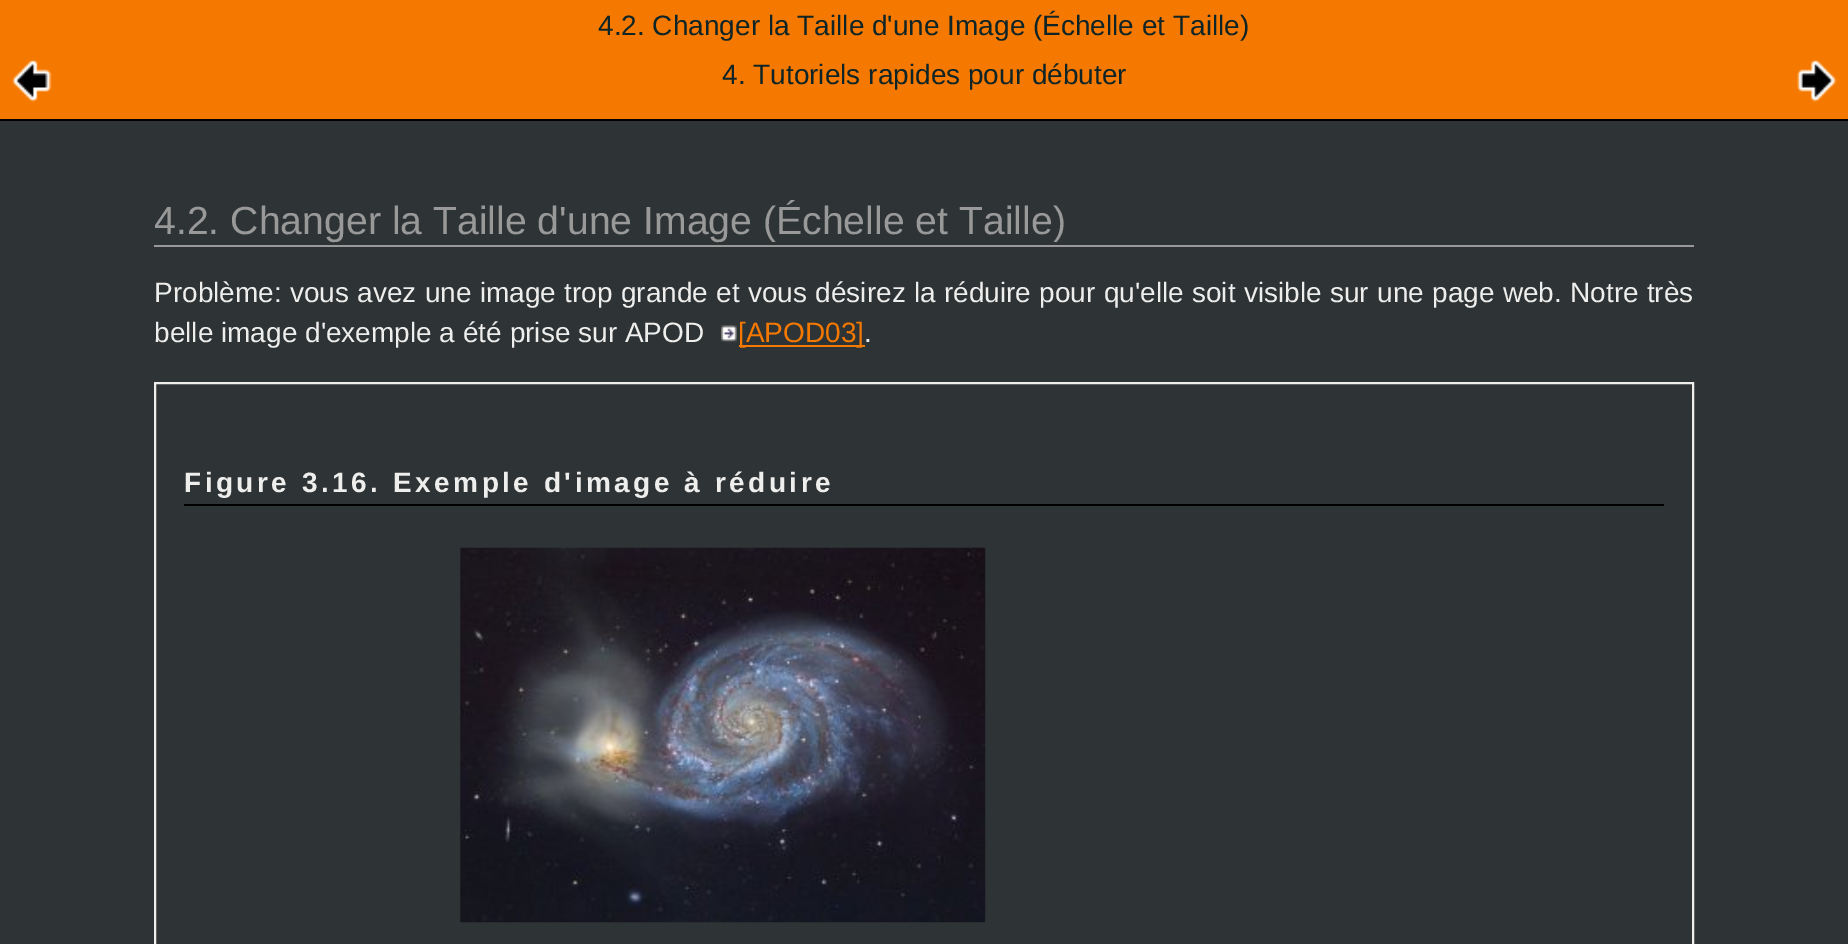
%!PS-Adobe-3.0
%%BoundingBox: 0 0 1848 944
%%LanguageLevel: 3
%%Pages: 1
%%EndComments
%%BeginProlog
/setink { dup -16 bitshift 255 div exch dup -8 bitshift 255 and 255 div exch 255 and 255 div setrgbcolor } def
/usefont { [ exch dup neg 0 0 3 -1 roll 0 0 ] selectfont } def
/drawimage { 5 dict begin { /h /w /y /x /name } { exch def } forall
  gsave x y translate w h scale
  w h 8 [w 0 0 h 0 0] name (r) file false 3 colorimage grestore end } def
%%EndProlog
%%BeginSetup
<< /PageSize [1848 944] >> setpagedevice
%%EndSetup
%%Page: 1 1
0 944 translate 1 -1 scale
4 setmiterlimit
16#2E3436 setink
0 0 1848 944 rectfill
16#F57900 setink
0 0 1848 119 rectfill
16#000000 setink
0 119 1848 2 rectfill
/LiberationSans-Regular 28 usefont
16#0E2426 setink
598 35 moveto (4.2. Changer la Taille d'une Image \(Échelle et Taille\)) show
(img1.raw) 12 59 40 43 drawimage
722 84 moveto (4. Tutoriels rapides pour débuter) show
(img2.raw) 1797 59 40 43 drawimage
16#999999 setink
154 245 1540 2 rectfill
/LiberationSans-Regular 39.2 usefont
154 234 moveto (4.2. Changer la Taille d'une Image \(Échelle et Taille\)) show
/LiberationSans-Regular 28 usefont
16#EEEEEC setink
154 302 moveto 0.5 0 32 (Problème: vous avez une image trop grande et vous désirez la réduire pour qu'elle soit visible sur une page web. Notre très) widthshow
154 342 moveto (belle image d'exemple a été prise sur APOD) show
(img3.raw) 721 325 16 17 drawimage
16#F57900 setink
739 345 126 2 rectfill
738 342 moveto ([APOD03]) show
16#EEEEEC setink
864 342 moveto (.) show
2 setlinewidth
155 383 1538 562 rectstroke
16#000000 setink
184 504 1480 2 rectfill
/LiberationSans-Bold 28 usefont
16#EEEEEC setink
184 492 moveto 3.5 0 (Figure 3.16. Exemple d'image à réduire) ashow
(img4.raw) 460 547 526 376 drawimage
showpage
%%EOF
